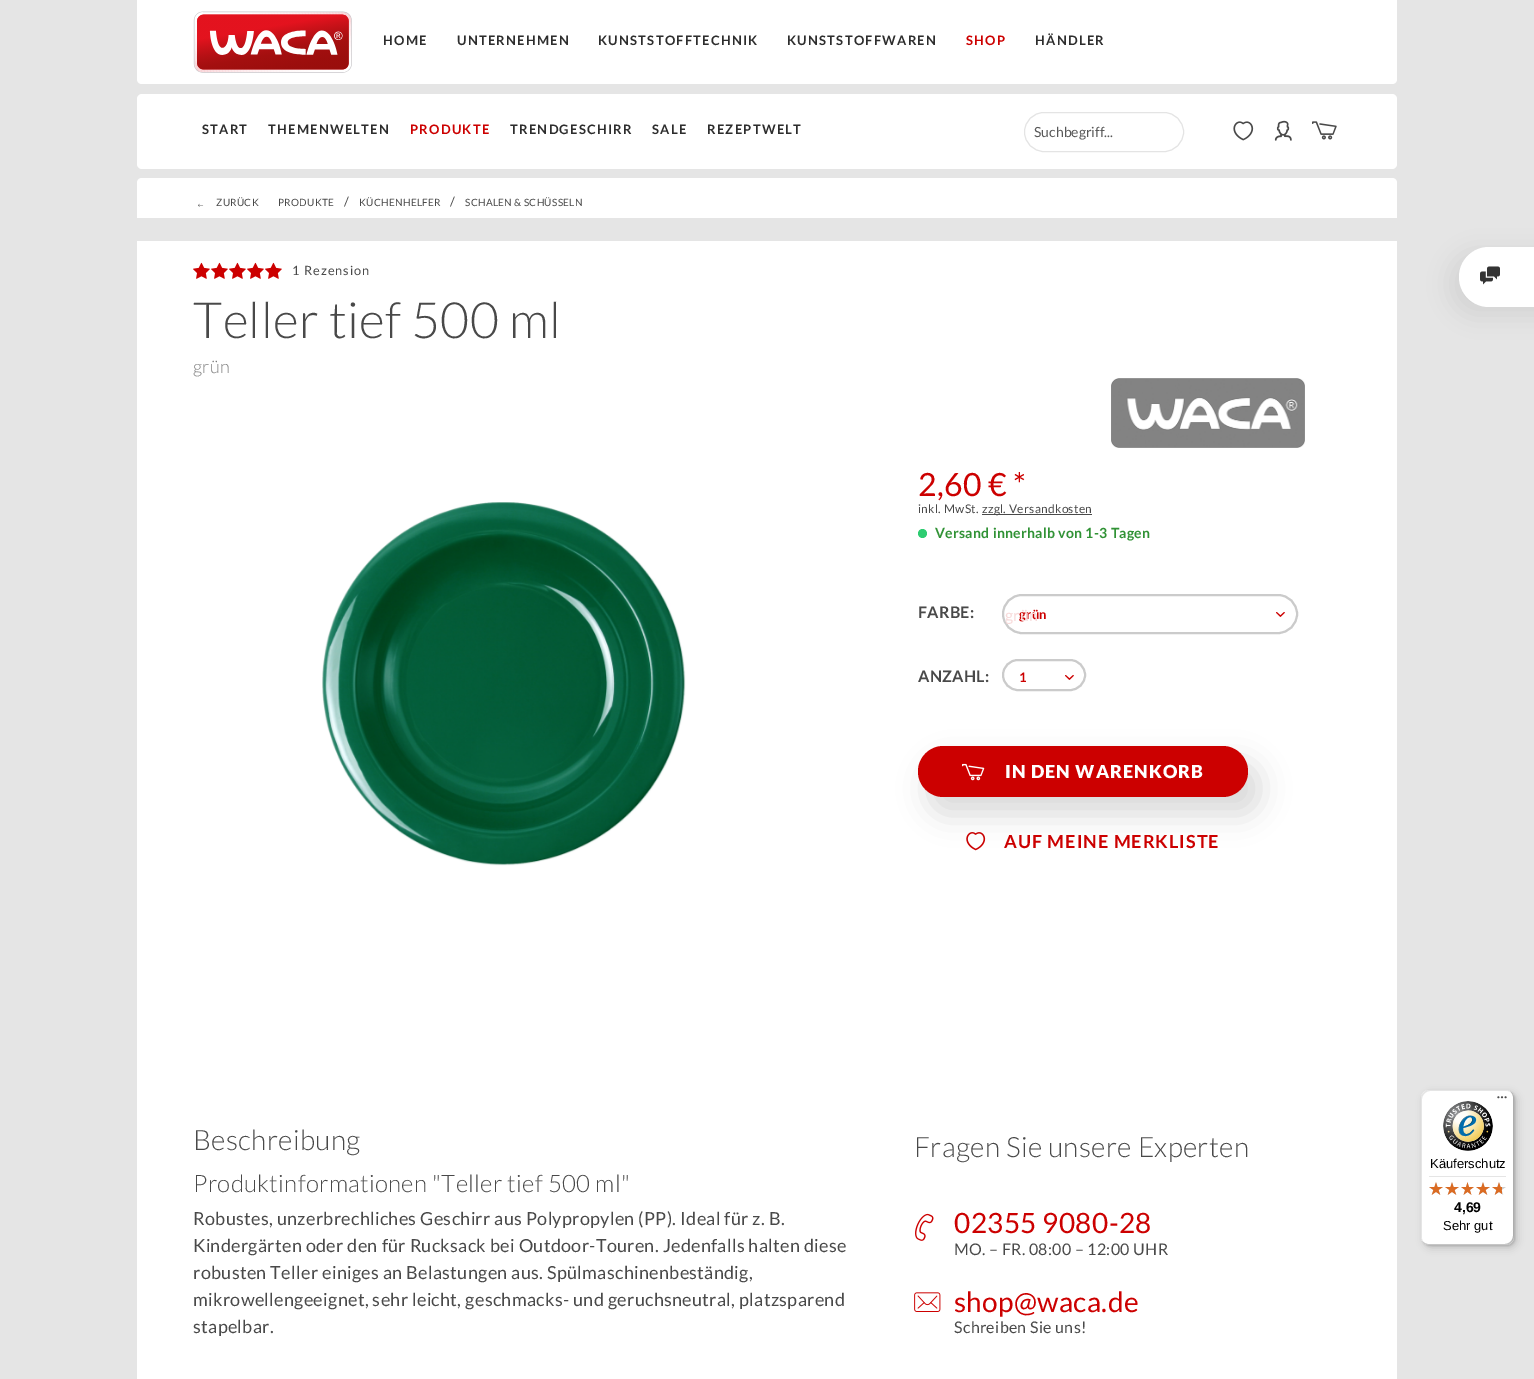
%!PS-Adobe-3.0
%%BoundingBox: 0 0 1534 1379
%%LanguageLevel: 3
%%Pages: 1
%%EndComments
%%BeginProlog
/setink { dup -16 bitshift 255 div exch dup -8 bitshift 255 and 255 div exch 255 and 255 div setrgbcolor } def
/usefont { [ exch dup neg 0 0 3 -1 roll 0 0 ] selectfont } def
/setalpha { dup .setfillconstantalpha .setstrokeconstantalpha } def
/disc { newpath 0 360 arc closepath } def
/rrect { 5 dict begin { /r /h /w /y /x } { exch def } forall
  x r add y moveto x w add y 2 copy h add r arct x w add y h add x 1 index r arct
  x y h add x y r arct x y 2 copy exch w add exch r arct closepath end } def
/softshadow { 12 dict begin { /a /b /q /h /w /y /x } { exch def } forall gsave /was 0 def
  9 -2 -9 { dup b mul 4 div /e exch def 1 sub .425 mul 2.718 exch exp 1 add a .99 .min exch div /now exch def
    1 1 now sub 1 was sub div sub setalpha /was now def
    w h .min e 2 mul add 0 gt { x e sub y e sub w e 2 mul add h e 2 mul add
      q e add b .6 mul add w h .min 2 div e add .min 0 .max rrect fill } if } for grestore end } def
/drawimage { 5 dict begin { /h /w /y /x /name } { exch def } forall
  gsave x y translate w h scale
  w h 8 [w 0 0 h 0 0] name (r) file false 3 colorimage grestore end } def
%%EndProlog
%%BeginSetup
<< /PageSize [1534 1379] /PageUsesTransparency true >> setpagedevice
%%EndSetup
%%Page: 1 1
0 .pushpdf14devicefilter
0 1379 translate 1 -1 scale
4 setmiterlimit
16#E5E5E5 setink
0 0 1534 1379 rectfill
16#FFFFFF setink
137 0 moveto 1397 0 lineto 1397 79 lineto 1397 82 1395 84 1392 84 curveto 142 84 lineto 139 84 137 82 137 79 curveto closepath fill
(img1.raw) 193 11 159 62 drawimage
/Lato-Bold 13 usefont
16#2D2D2D setink
383 45 moveto 1.25 0 (HOME) ashow
457 45 moveto 1.25 0 (UNTERNEHMEN) ashow
598 45 moveto 1.25 0 (KUNSTSTOFFTECHNIK) ashow
787 45 moveto 1.25 0 (KUNSTSTOFFWAREN) ashow
16#CC0000 setink
966 45 moveto 1.25 0 (SHOP) ashow
16#2D2D2D setink
1035 45 moveto 1.25 0 (HÄNDLER) ashow
16#FFFFFF setink
137 94 1260 75 5 rrect fill
16#2D2D2D setink
202 134 moveto 1.25 0 (START) ashow
268 134 moveto 1.25 0 (THEMENWELTEN) ashow
16#CC0000 setink
410 134 moveto 1.25 0 (PRODUKTE) ashow
16#2D2D2D setink
510 134 moveto 1.25 0 (TRENDGESCHIRR) ashow
652 134 moveto 1.25 0 (SALE) ashow
707 134 moveto 1.25 0 (REZEPTWELT) ashow
16#E4E4E4 setink
1024.5 112.5 159 39 19.5 rrect stroke
/Lato-Regular 14 usefont
16#595959 setink
1034 137 moveto (Suchbegriff...) show
(img2.raw) 1233 121 21 20 drawimage
(img3.raw) 1274 120 18 21 drawimage
(img4.raw) 1312 121 25 19 drawimage
16#FFFFFF setink
142 178 moveto 1392 178 lineto 1395 178 1397 180 1397 183 curveto 1397 218 lineto 137 218 lineto 137 183 lineto 137 180 139 178 142 178 curveto closepath fill
(img5.raw) 198 203 6 4 drawimage
/Lato-Regular 10 usefont
16#494949 setink
216 206 moveto 0.3 0 (ZURÜCK) ashow
278 206 moveto 0.3 0 (PRODUKTE) ashow
/Lato-Regular 12.75 usefont
344 206 moveto 0.3 0 (/) ashow
/Lato-Regular 10 usefont
359 206 moveto 0.3 0 (KÜCHENHELFER) ashow
/Lato-Regular 12.75 usefont
450 206 moveto 0.3 0 (/) ashow
/Lato-Regular 10 usefont
465 206 moveto 0.3 0 (SCHALEN & SCHÜSSELN) ashow
16#FFFFFF setink
137 241 1260 1138 rectfill
(img6.raw) 193 262 17 17 drawimage
(img6.raw) 211 262 17 17 drawimage
(img6.raw) 229 262 17 17 drawimage
(img6.raw) 247 262 17 17 drawimage
(img6.raw) 265 262 17 17 drawimage
/Lato-Regular 12.75 usefont
16#494949 setink
292 275 moveto 1 0 (1 Rezension) ashow
/Lato-Light 50 usefont
193 338 moveto 0.3 0 (Teller tief 500 ml) ashow
/Lato-Light 18 usefont
16#7D7D7D setink
193 373 moveto 0.3 0 (grün) ashow
(img7.raw) 1111 378 194 70 drawimage
(img8.raw) 322 502 364 364 drawimage
/Lato-Regular 32 usefont
16#CC0000 setink
918 496 moveto 0.3 0 (2,60 € *) ashow
/Lato-Regular 12 usefont
16#494949 setink
918 513 moveto 0.3 0 (inkl. MwSt.) ashow
982 514 110 1 rectfill
982 513 moveto 0.3 0 (zzgl. Versandkosten) ashow
16#2ECC71 setink
922.5 533.5 4.5 disc fill
/Lato-Bold 14 usefont
16#309235 setink
935 538 moveto 0.3 0 (Versand innerhalb von 1-3 Tagen) ashow
/Lato-Bold 16 usefont
16#494949 setink
918 618 moveto 0.3 0 (FARBE:) ashow
16#CBCBCB setink
2 setlinewidth
1003 595 294 38 19 rrect stroke
/Lato-Bold 13 usefont
16#CC0000 setink
1019 619 moveto 0.3 0 (grün) ashow
gsave
1004 596 292 36 18 rrect clip newpath
/Lato-Regular 16 usefont
16#F7DADA setink
1005 621 moveto (grün) show
grestore
(img9.raw) 1276 612 9 5 drawimage
/Lato-Bold 16 usefont
16#494949 setink
918 682 moveto 0.3 0 (ANZAHL:) ashow
16#CBCBCB setink
1003 660 82 30 15 rrect stroke
/Lato-Bold 13 usefont
16#CC0000 setink
1019 682 moveto 0.3 0 (1) ashow
(img9.raw) 1065 675 9 5 drawimage
(img11.raw) 966 832 20 19 drawimage
16#000000 setink
929 763 330 51 25.5 15 0.15 softshadow
16#CC0000 setink
918 746 330 51 25.5 rrect fill
(img10.raw) 962 763 23 18 drawimage
/Lato-Black 18 usefont
16#FFFFFF setink
1005 778 moveto 1 0 (IN DEN WARENKORB) ashow
/Lato-Bold 18 usefont
16#CC0000 setink
1004 848 moveto 1 0 (AUF MEINE MERKLISTE) ashow
/Lato-Light 28 usefont
16#494949 setink
193 1150 moveto 0.3 0 (Beschreibung) ashow
914 1157 moveto 0.3 0 (Fragen Sie unsere Experten) ashow
(img12.raw) 915 1213 19 28 drawimage
/Lato-Regular 28 usefont
16#CC0000 setink
954 1233 moveto 0.3 0 (02355 9080-28) ashow
/Lato-Regular 16 usefont
16#494949 setink
954 1255 moveto 0.3 0 (MO. – FR. 08:00 – 12:00 UHR) ashow
(img13.raw) 914 1292 27 20 drawimage
/Lato-Regular 28 usefont
16#CC0000 setink
954 1312 moveto 0.3 0 (shop@waca.de) ashow
/Lato-Regular 16 usefont
16#494949 setink
954 1333 moveto 0.3 0 (Schreiben Sie uns!) ashow
/Lato-Light 24 usefont
193 1192 moveto 0.3 0 (Produktinformationen "Teller tief 500 ml") ashow
/Lato-Regular 18 usefont
193 1225 moveto 0.3 0 (Robustes, unzerbrechliches Geschirr aus Polypropylen \(PP\). Ideal für z. B.) ashow
193 1252 moveto 0.3 0 (Kindergärten oder den für Rucksack bei Outdoor-Touren. Jedenfalls halten diese) ashow
193 1279 moveto 0.3 0 (robusten Teller einiges an Belastungen aus. Spülmaschinenbeständig,) ashow
193 1306 moveto 0.3 0 (mikrowellengeeignet, sehr leicht, geschmacks- und geruchsneutral, platzsparend) ashow
193 1333 moveto 0.3 0 (stapelbar.) ashow
16#000000 setink
1452 254 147 60 30 11.5 0.08 softshadow
16#FFFFFF setink
1459 247 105 60 30 rrect fill
(img14.raw) 1480 266 20 19 drawimage
16#000000 setink
1424 1093 93 155 8 4 0.15 softshadow
1422 1091 93 155 8 1 0.15 softshadow
16#FFFFFF setink
1421 1090 93 155 8 rrect fill
0.1 setalpha
16#000000 setink
1430 1091 moveto 1507 1091 lineto 1509 1091 1511 1092 1513 1094 curveto 1511 1092 1509 1090 1506 1090 curveto 1429 1090 lineto 1425 1090 1421 1094 1421 1098 curveto 1421 1237 lineto 1421 1240 1423 1242 1425 1244 curveto 1423 1242 1422 1240 1422 1238 curveto 1422 1099 lineto 1422 1095 1426 1091 1430 1091 curveto closepath fill
0.2 setalpha
1422 1241 moveto 1424 1243 1426 1245 1429 1245 curveto 1506 1245 lineto 1510 1245 1514 1241 1514 1237 curveto 1514 1098 lineto 1514 1095 1512 1093 1510 1091 curveto 1512 1093 1513 1095 1513 1097 curveto 1513 1236 lineto 1513 1240 1509 1244 1505 1244 curveto 1428 1244 lineto 1426 1244 1424 1243 1422 1241 curveto closepath fill
16#323232 setink
1423 1242 moveto 1424 1244 1427 1245 1429 1245 curveto 1506 1245 lineto 1510 1245 1514 1241 1514 1237 curveto 1514 1098 lineto 1514 1096 1513 1093 1511 1092 curveto 1512 1093 1513 1095 1513 1097 curveto 1513 1236 lineto 1513 1241 1510 1244 1505 1244 curveto 1428 1244 lineto 1426 1244 1424 1243 1423 1242 curveto closepath fill
1 setalpha
(img15.raw) 1497 1096 10 3 drawimage
0.3 setalpha
16#FFFFFF setink
1423 1242 moveto 1424 1244 1427 1245 1429 1245 curveto 1506 1245 lineto 1510 1245 1514 1241 1514 1237 curveto 1514 1236 lineto 1514 1241 1510 1244 1506 1244 curveto 1428 1244 lineto 1426 1244 1424 1243 1423 1242 curveto closepath fill
1 setalpha
(img16.raw) 1443 1101 50 50 drawimage
/LiberationSans-Regular 13 usefont
16#000000 setink
1430 1168 moveto (Käuferschutz) show
16#E5E5E5 setink
1429 1176 77 1 rectfill
(img17.raw) 1429 1182 14 13 drawimage
(img17.raw) 1445 1182 14 13 drawimage
(img18.raw) 1461 1182 13 13 drawimage
(img17.raw) 1476 1182 14 13 drawimage
(img17.raw) 1492 1182 14 13 drawimage
(img19.raw) 1429 1182 14 13 drawimage
(img19.raw) 1445 1182 14 13 drawimage
(img20.raw) 1461 1182 13 13 drawimage
(img19.raw) 1476 1182 14 13 drawimage
(img21.raw) 1492 1182 10 13 drawimage
/LiberationSans-Bold 14 usefont
16#000000 setink
1454 1212 moveto (4,69) show
/LiberationSans-Regular 13 usefont
1443 1230 moveto (Sehr gut) show
.poppdf14devicefilter showpage
%%EOF
